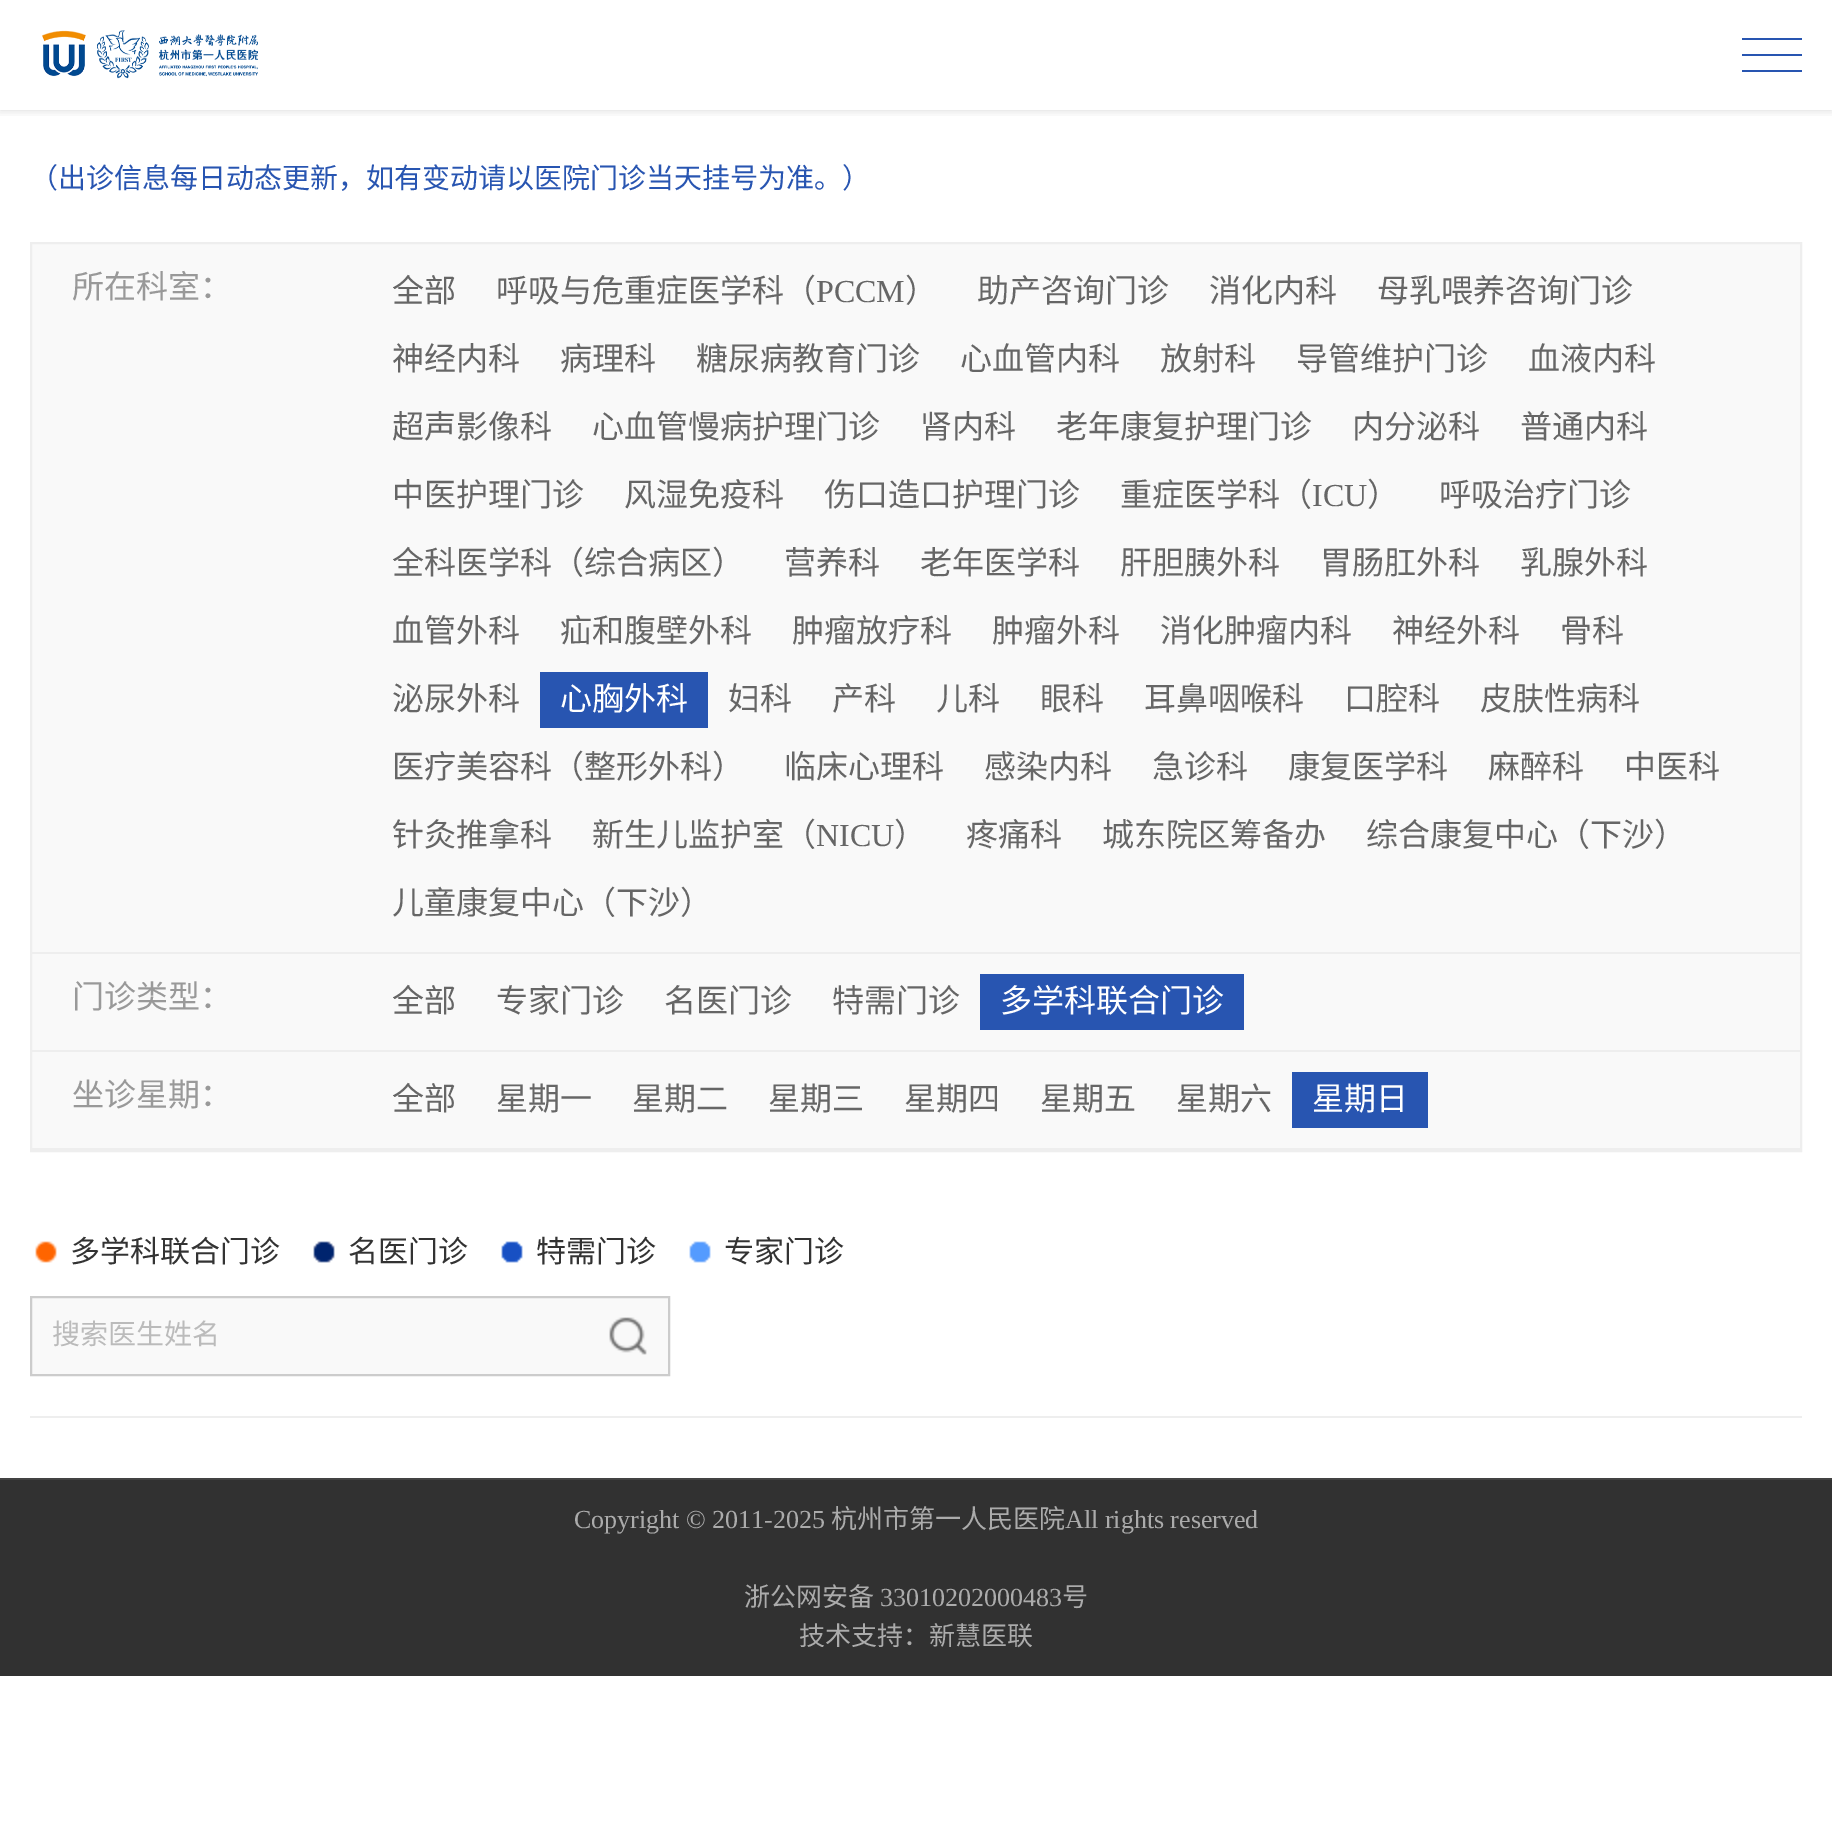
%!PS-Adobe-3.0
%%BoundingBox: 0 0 1832 1844
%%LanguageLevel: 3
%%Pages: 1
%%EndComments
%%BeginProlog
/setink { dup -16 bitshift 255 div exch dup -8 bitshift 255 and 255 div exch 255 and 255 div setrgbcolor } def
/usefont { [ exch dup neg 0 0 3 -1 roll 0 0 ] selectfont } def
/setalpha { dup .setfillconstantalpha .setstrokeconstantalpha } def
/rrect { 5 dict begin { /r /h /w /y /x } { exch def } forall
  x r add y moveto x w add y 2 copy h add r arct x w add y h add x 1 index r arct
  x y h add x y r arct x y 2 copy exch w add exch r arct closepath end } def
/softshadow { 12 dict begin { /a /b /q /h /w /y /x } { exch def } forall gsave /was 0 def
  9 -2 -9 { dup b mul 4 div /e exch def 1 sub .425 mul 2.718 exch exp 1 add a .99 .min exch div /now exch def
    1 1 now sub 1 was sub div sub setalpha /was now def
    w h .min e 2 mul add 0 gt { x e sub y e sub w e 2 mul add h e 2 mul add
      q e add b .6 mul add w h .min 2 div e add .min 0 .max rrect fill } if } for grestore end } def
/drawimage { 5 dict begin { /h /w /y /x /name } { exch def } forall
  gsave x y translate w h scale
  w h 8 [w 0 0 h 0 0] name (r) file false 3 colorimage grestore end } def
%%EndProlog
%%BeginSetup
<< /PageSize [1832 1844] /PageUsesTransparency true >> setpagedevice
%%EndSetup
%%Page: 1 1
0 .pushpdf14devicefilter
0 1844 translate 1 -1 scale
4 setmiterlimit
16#FFFFFF setink
0 0 1832 1844 rectfill
gsave
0 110 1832 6 rectclip
16#000000 setink
0 0 1832 110 0 5 0.15 softshadow
grestore
(img1.raw) 42 30 216 49 drawimage
[
    [1742 54 60 2 16#2855B1]
    [1742 38 60 2 16#2855B1]
    [1742 70 60 2 16#2855B1]
] { aload pop setink rectfill } forall
/NotoSansCJKSC-Regular 28 usefont
30 188 moveto (（出诊信息每日动态更新，如有变动请以医院门诊当天挂号为准。）) show
16#F9F9F9 setink
32 244 1768 904 rectfill
16#EEEEEE setink
2 setlinewidth
31 243 1770 908 rectstroke
32 952 1768 2 rectfill
/NotoSansCJKSC-Regular 32 usefont
16#999999 setink
72 298 moveto (所在科室：) show
16#666666 setink
392 302 moveto (全部) show
496 302 moveto (呼吸与危重症医学科（) show
/LiberationSerif-Regular 32 usefont
816 302 moveto (PCCM) show
/NotoSansCJKSC-Regular 32 usefont
[
    [(）) 905 302]
    [(助产咨询门诊) 977 302]
    [(消化内科) 1209 302]
    [(母乳喂养咨询门诊) 1377 302]
    [(神经内科) 392 370]
    [(病理科) 560 370]
    [(糖尿病教育门诊) 696 370]
    [(心血管内科) 960 370]
    [(放射科) 1160 370]
    [(导管维护门诊) 1296 370]
    [(血液内科) 1528 370]
    [(超声影像科) 392 438]
    [(心血管慢病护理门诊) 592 438]
    [(肾内科) 920 438]
    [(老年康复护理门诊) 1056 438]
    [(内分泌科) 1352 438]
    [(普通内科) 1520 438]
    [(中医护理门诊) 392 506]
    [(风湿免疫科) 624 506]
    [(伤口造口护理门诊) 824 506]
    [(重症医学科（) 1120 506]
] { aload pop moveto show } forall
/LiberationSerif-Regular 32 usefont
1312 506 moveto (ICU) show
/NotoSansCJKSC-Regular 32 usefont
[
    [(）) 1367 506]
    [(呼吸治疗门诊) 1439 506]
    [(全科医学科（综合病区）) 392 574]
    [(营养科) 784 574]
    [(老年医学科) 920 574]
    [(肝胆胰外科) 1120 574]
    [(胃肠肛外科) 1320 574]
    [(乳腺外科) 1520 574]
    [(血管外科) 392 642]
    [(疝和腹壁外科) 560 642]
    [(肿瘤放疗科) 792 642]
    [(肿瘤外科) 992 642]
    [(消化肿瘤内科) 1160 642]
    [(神经外科) 1392 642]
    [(骨科) 1560 642]
    [(泌尿外科) 392 710]
] { aload pop moveto show } forall
16#2855B1 setink
540 672 168 56 rectfill
16#FFFFFF setink
560 710 moveto (心胸外科) show
16#666666 setink
[
    [(妇科) 728 710]
    [(产科) 832 710]
    [(儿科) 936 710]
    [(眼科) 1040 710]
    [(耳鼻咽喉科) 1144 710]
    [(口腔科) 1344 710]
    [(皮肤性病科) 1480 710]
    [(医疗美容科（整形外科）) 392 778]
    [(临床心理科) 784 778]
    [(感染内科) 984 778]
    [(急诊科) 1152 778]
    [(康复医学科) 1288 778]
    [(麻醉科) 1488 778]
    [(中医科) 1624 778]
    [(针灸推拿科) 392 846]
    [(新生儿监护室（) 592 846]
] { aload pop moveto show } forall
/LiberationSerif-Regular 32 usefont
816 846 moveto (NICU) show
/NotoSansCJKSC-Regular 32 usefont
[
    [(）) 894 846]
    [(疼痛科) 966 846]
    [(城东院区筹备办) 1102 846]
    [(综合康复中心（下沙）) 1366 846]
    [(儿童康复中心（下沙）) 392 914]
] { aload pop moveto show } forall
16#EEEEEE setink
32 1050 1768 2 rectfill
16#999999 setink
72 1008 moveto (门诊类型：) show
16#666666 setink
[
    [(全部) 392 1012]
    [(专家门诊) 496 1012]
    [(名医门诊) 664 1012]
    [(特需门诊) 832 1012]
] { aload pop moveto show } forall
16#2855B1 setink
980 974 264 56 rectfill
16#FFFFFF setink
1000 1012 moveto (多学科联合门诊) show
16#EEEEEE setink
32 1148 1768 2 rectfill
16#999999 setink
72 1106 moveto (坐诊星期：) show
16#666666 setink
[
    [(全部) 392 1110]
    [(星期一) 496 1110]
    [(星期二) 632 1110]
    [(星期三) 768 1110]
    [(星期四) 904 1110]
    [(星期五) 1040 1110]
    [(星期六) 1176 1110]
] { aload pop moveto show } forall
16#2855B1 setink
1292 1072 136 56 rectfill
16#FFFFFF setink
1312 1110 moveto (星期日) show
16#EEEEEE setink
30 1416 1772 2 rectfill
(img2.raw) 35 1241 22 22 drawimage
/NotoSansCJKSC-Regular 30 usefont
16#333333 setink
70 1262 moveto (多学科联合门诊) show
(img3.raw) 313 1241 22 22 drawimage
348 1262 moveto (名医门诊) show
(img4.raw) 501 1241 22 22 drawimage
536 1262 moveto (特需门诊) show
(img5.raw) 689 1241 22 22 drawimage
724 1262 moveto (专家门诊) show
16#F9F9F9 setink
31 1297 moveto 669 1297 lineto 669 1375 lineto 31 1375 lineto closepath gsave fill grestore
16#CCCCCC setink
stroke
/NotoSansCJKSC-Regular 28 usefont
16#BBBBBB setink
52 1344 moveto (搜索医生姓名) show
(img6.raw) 609 1317 38 38 drawimage
16#313131 setink
0 1480 1832 196 rectfill
16#434343 setink
0 1478 1832 2 rectfill
/LiberationSerif-Regular 26 usefont
16#ABABAB setink
574 1528 moveto (Copyright © 2011-2025) show
/NotoSansCJKSC-Regular 26 usefont
831 1528 moveto (杭州市第一人民医院) show
/LiberationSerif-Regular 26 usefont
1065 1528 moveto (All rights reserved) show
/NotoSansCJKSC-Regular 26 usefont
744 1606 moveto (浙公网安备) show
/LiberationSerif-Regular 26 usefont
880 1606 moveto (33010202000483) show
/NotoSansCJKSC-Regular 26 usefont
1062 1606 moveto (号) show
799 1645 moveto (技术支持：新慧医联) show
.poppdf14devicefilter showpage
%%EOF
